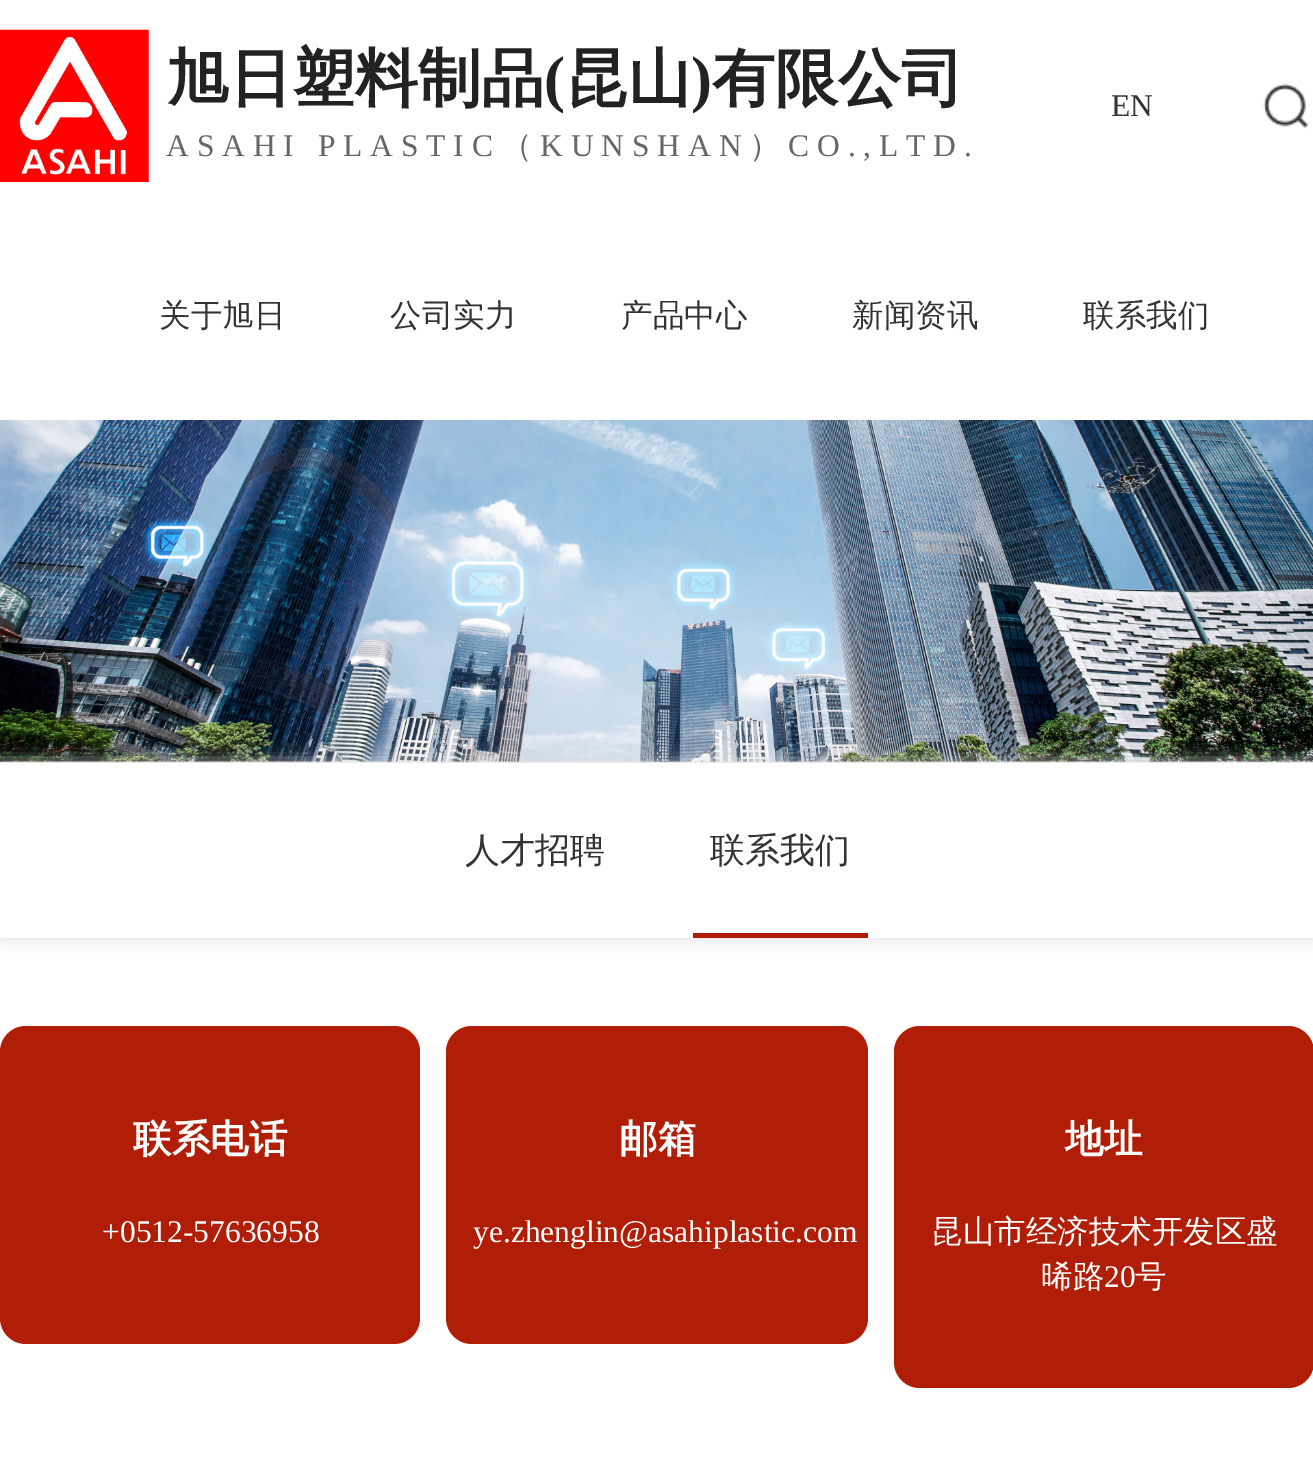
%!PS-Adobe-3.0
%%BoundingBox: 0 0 1313 1478
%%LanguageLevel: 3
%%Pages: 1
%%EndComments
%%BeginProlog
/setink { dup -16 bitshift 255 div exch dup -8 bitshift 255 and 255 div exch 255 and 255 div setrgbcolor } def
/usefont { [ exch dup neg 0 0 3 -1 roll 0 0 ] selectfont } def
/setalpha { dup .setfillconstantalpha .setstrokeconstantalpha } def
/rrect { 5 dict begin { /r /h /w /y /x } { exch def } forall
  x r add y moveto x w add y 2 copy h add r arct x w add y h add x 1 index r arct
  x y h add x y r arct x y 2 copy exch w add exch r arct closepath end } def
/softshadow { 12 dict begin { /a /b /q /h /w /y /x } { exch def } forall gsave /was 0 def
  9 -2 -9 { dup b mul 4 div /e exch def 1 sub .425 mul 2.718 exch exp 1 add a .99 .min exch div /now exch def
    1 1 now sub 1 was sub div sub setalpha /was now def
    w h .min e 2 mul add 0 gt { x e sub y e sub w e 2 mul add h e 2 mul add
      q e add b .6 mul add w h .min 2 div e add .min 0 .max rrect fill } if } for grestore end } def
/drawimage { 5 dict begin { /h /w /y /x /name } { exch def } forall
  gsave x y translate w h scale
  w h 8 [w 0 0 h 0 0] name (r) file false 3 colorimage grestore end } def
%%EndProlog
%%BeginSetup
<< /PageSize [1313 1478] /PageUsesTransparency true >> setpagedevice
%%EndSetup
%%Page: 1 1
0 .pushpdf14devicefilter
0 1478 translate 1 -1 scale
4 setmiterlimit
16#FFFFFF setink
0 0 1313 1478 rectfill
(img1.raw) 0 29 149 153 drawimage
/WenQuanYiZenHei-Bold 63 usefont
16#222222 setink
166 100 moveto (旭日塑料制品) show
/LiberationSerif-Bold 63 usefont
544 100 moveto (\() show
/WenQuanYiZenHei-Bold 63 usefont
565 100 moveto (昆山) show
/LiberationSerif-Bold 63 usefont
691 100 moveto (\)) show
/WenQuanYiZenHei-Bold 63 usefont
712 100 moveto (有限公司) show
/LiberationSerif-Regular 31.5 usefont
16#666666 setink
166 156 moveto 7.9 0 (ASAHI PLASTIC) ashow
/WenQuanYiZenHei-Medium 31.5 usefont
501 156 moveto 7.9 0 (（) ashow
/LiberationSerif-Regular 31.5 usefont
540 156 moveto 7.9 0 (KUNSHAN) ashow
/WenQuanYiZenHei-Medium 31.5 usefont
749 156 moveto 7.9 0 (）) ashow
/LiberationSerif-Regular 31.5 usefont
788 156 moveto 7.9 0 (CO.,LTD.) ashow
16#333333 setink
1111 116 moveto (EN) show
(img2.raw) 1263 83 46 46 drawimage
/WenQuanYiZenHei-Medium 31.5 usefont
[
    [(关于旭日) 159 326]
    [(公司实力) 390 326]
    [(产品中心) 621 326]
    [(新闻资讯) 852 326]
    [(联系我们) 1083 326]
] { aload pop moveto show } forall
(img3.raw) 0 420 1313 343 drawimage
gsave
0 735 moveto 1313 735 lineto 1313 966 lineto 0 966 lineto closepath 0 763 moveto 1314 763 lineto 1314 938 lineto 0 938 lineto closepath eoclip newpath
16#DDDDDD setink
0 763 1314 175 0 9 1 softshadow
grestore
/WenQuanYiZenHei-Medium 35 usefont
465 862 moveto (人才招聘) show
710 862 moveto (联系我们) show
16#B11E08 setink
693 933 175 5 rectfill
0 1026 420 318 26 rrect fill
/WenQuanYiZenHei-Bold 38.5 usefont
16#FFFFFF setink
133 1152 moveto (联系电话) show
/LiberationSerif-Regular 31.5 usefont
102 1242 moveto (+0512-57636958) show
16#B11E08 setink
446 1026 422 318 26 rrect fill
/WenQuanYiZenHei-Bold 38.5 usefont
16#FFFFFF setink
619 1152 moveto (邮箱) show
/LiberationSerif-Regular 31.5 usefont
473 1242 moveto (ye.zhenglin@asahiplastic.com) show
16#B11E08 setink
894 1026 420 362 26 rrect fill
/WenQuanYiZenHei-Bold 38.5 usefont
16#FFFFFF setink
1065 1152 moveto (地址) show
/WenQuanYiZenHei-Medium 31.5 usefont
931 1242 moveto (昆山市经济技术开发区盛) show
1041 1287 moveto (晞路) show
/LiberationSerif-Regular 31.5 usefont
1104 1287 moveto (20) show
/WenQuanYiZenHei-Medium 31.5 usefont
1135 1287 moveto (号) show
.poppdf14devicefilter showpage
%%EOF
